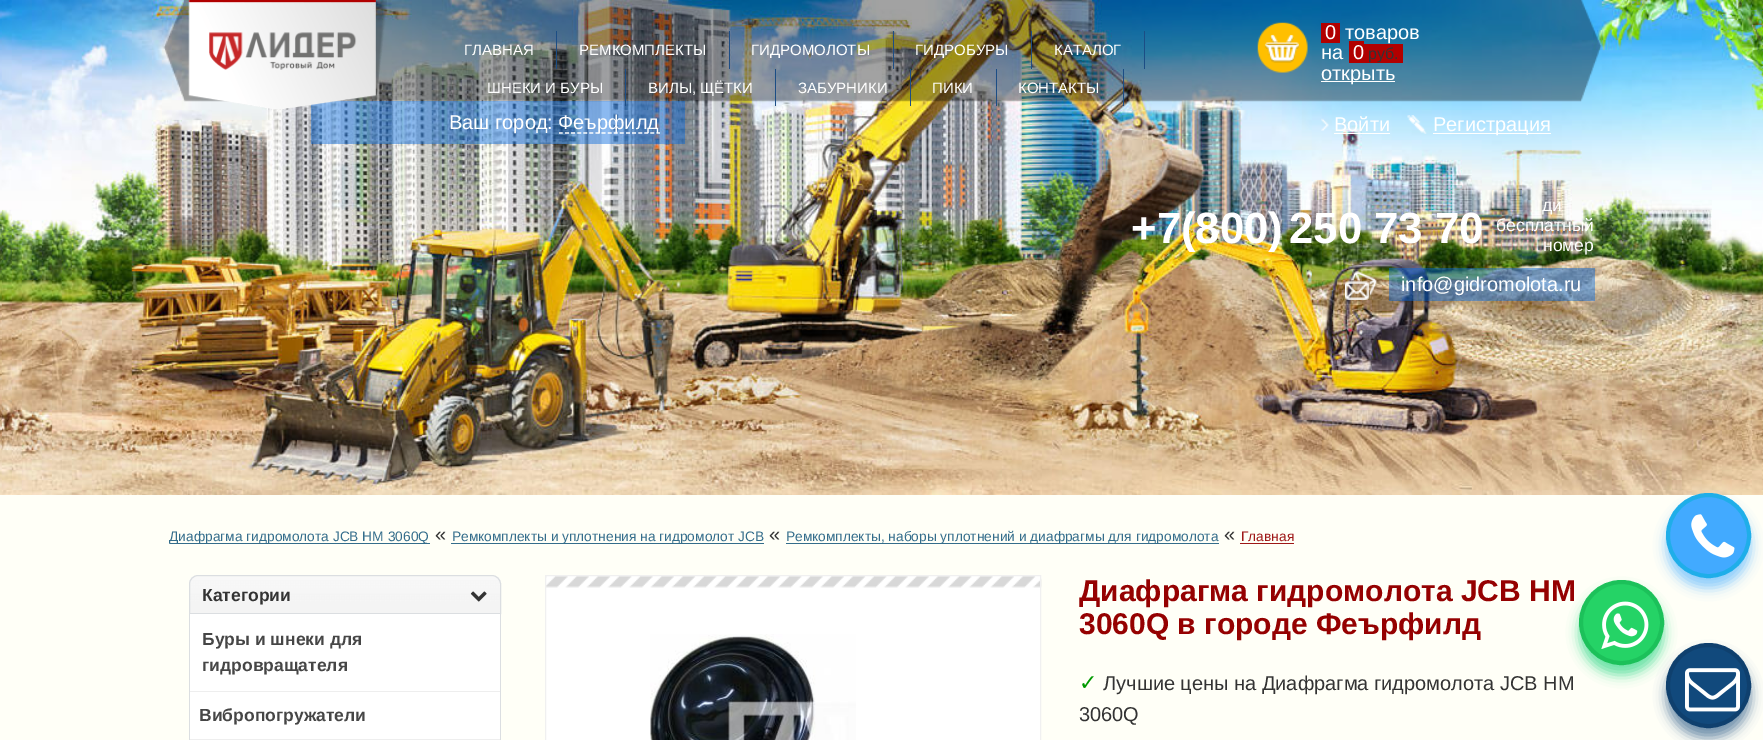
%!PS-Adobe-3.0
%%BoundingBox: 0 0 1763 740
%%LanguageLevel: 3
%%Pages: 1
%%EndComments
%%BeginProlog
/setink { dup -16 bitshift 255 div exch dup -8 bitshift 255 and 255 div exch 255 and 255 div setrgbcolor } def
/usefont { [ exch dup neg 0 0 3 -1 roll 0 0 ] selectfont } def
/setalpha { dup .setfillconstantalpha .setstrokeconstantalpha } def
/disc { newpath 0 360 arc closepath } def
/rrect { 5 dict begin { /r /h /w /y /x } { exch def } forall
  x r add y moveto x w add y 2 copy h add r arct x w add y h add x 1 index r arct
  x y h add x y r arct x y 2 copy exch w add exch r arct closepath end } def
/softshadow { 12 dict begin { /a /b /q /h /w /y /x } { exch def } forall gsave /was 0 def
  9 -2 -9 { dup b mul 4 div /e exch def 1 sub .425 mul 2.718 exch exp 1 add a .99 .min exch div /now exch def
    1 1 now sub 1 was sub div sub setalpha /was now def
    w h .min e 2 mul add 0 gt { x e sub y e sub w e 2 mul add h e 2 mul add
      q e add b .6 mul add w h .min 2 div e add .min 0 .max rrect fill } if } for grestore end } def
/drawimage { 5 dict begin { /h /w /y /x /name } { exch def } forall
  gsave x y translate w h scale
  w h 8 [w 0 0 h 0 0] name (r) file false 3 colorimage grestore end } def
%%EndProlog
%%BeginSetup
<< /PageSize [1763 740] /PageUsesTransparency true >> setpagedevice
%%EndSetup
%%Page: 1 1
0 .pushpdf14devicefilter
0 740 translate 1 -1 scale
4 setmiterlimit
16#FFFFF7 setink
0 0 1763 740 rectfill
(img1.raw) 0 0 1763 495 drawimage
(img2.raw) 163 0 1439 102 drawimage
0.45 setalpha
16#0469DF setink
311 101 374 43 rectfill
1 setalpha
(img3.raw) 188 0 199 110 drawimage
/LiberationSans-Regular 15 usefont
16#FFFFFF setink
464 55 moveto (ГЛАВНАЯ) show
16#1C4D85 setink
556 31 1 38 rectfill
16#FFFFFF setink
579 55 moveto (РЕМКОМПЛЕКТЫ) show
16#1C4D85 setink
729 31 1 38 rectfill
16#FFFFFF setink
751 55 moveto (ГИДРОМОЛОТЫ) show
16#1C4D85 setink
893 31 1 38 rectfill
16#FFFFFF setink
915 55 moveto (ГИДРОБУРЫ) show
16#1C4D85 setink
1031 31 1 38 rectfill
16#FFFFFF setink
1054 55 moveto (КАТАЛОГ) show
16#1C4D85 setink
1144 31 1 38 rectfill
16#FFFFFF setink
487 93 moveto (ШНЕКИ И БУРЫ) show
16#1C4D85 setink
625 69 1 37 rectfill
16#FFFFFF setink
648 93 moveto (ВИЛЫ, ЩЁТКИ) show
16#1C4D85 setink
775 69 1 37 rectfill
16#FFFFFF setink
798 93 moveto (ЗАБУРНИКИ) show
16#1C4D85 setink
910 69 1 37 rectfill
16#FFFFFF setink
932 93 moveto (ПИКИ) show
16#1C4D85 setink
996 69 1 37 rectfill
16#FFFFFF setink
1018 93 moveto (КОНТАКТЫ) show
16#1C4D85 setink
1123 69 1 37 rectfill
(img4.raw) 1257 22 51 51 drawimage
16#B10000 setink
1321 23 19 20 rectfill
/LiberationSans-Regular 20 usefont
16#FFFFFF setink
[
    [(0) 1325 39]
    [(товаров) 1345 39]
    [(на) 1321 59]
] { aload pop moveto show } forall
16#B10000 setink
1349 41 15 22 rectfill
16#FFFFFF setink
1353 59 moveto (0) show
16#B10000 setink
1364 44 39 19 rectfill
/LiberationSans-Regular 16 usefont
16#333333 setink
1368 59 moveto (руб.) show
16#FFFFFF setink
1321 81 74 1 rectfill
/LiberationSans-Regular 20 usefont
1321 80 moveto (открыть) show
(img5.raw) 1321 118 8 13 drawimage
1334 131 moveto (Войти) show
1334 133 56 1 rectfill
(img6.raw) 1407 115 20 19 drawimage
1433 133 118 1 rectfill
1433 131 moveto (Регистрация) show
449 129 moveto (Ваш город:) show
1.2 setlinewidth
[3.75 2.35] 0 setdash
559 133 moveto 660 133 lineto stroke
558 129 moveto (Феърфилд) show
/LiberationSans-Bold 43.75 usefont
1131 243 moveto (+7\(800\)) show
1289 243 moveto (250 73 70) show
/LiberationSans-Regular 17.5 usefont
[
    [(ди) 1542 211]
    [(бесплатный) 1496 231]
    [(номер) 1543 251]
] { aload pop moveto show } forall
(img7.raw) 1345 271 32 29 drawimage
0.45 setalpha
16#0469DF setink
1389 268 206 33 rectfill
/LiberationSans-Regular 20 usefont
1 setalpha
16#FFFFFF setink
1401 291 moveto (info@gidromolota.ru) show
16#346D8B setink
170 543 260 1 rectfill
/LiberationSans-Regular 13.75 usefont
169 541 moveto (Диафрагма гидромолота JCB HM 3060Q) show
/LiberationSans-Regular 20 usefont
16#333333 setink
435 541 moveto («) show
16#346D8B setink
451 543 313 1 rectfill
/LiberationSans-Regular 13.75 usefont
452 541 moveto (Ремкомплекты и уплотнения на гидромолот JCB) show
/LiberationSans-Regular 20 usefont
16#333333 setink
769 541 moveto («) show
16#346D8B setink
786 543 433 1 rectfill
/LiberationSans-Regular 13.75 usefont
786 541 moveto (Ремкомплекты, наборы уплотнений и диафрагмы для гидромолота) show
/LiberationSans-Regular 20 usefont
16#333333 setink
1224 541 moveto («) show
/LiberationSans-Regular 13.75 usefont
16#9E1717 setink
1241 541 moveto (Главная) show
1240 543 54 1 rectfill
(img8.raw) 189 576 312 37 drawimage
16#DBDEE1 setink
1 setlinewidth
[] 0 setdash
198 575.5 moveto 492 575.5 lineto 496.5 575.5 500.5 579.5 500.5 584 curveto 500.5 613.5 lineto 189.5 613.5 lineto 189.5 584 lineto 189.5 579.5 193.5 575.5 198 575.5 curveto closepath stroke
/LiberationSans-Bold 17.5 usefont
16#333333 setink
202 601 moveto (Категории) show
(img9.raw) 470 591 17 11 drawimage
16#FFFFFF setink
190 614 310 125 rectfill
16#DBDEE1 setink
189 614 moveto 501 614 lineto 501 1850 lineto 501 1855 497 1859 492 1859 curveto 198 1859 lineto 193 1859 189 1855 189 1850 curveto closepath 190 614 moveto 500 614 lineto 500 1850 lineto 500 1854 497 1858 492 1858 curveto 198 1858 lineto 193 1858 190 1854 190 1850 curveto closepath eofill
16#464646 setink
202 645 moveto (Буры и шнеки для) show
202 671 moveto (гидровращателя) show
16#EEEEEE setink
190 691 310 1 rectfill
16#464646 setink
199 721 moveto (Вибропогружатели) show
16#EEEEEE setink
190 739 310 1 rectfill
16#FFFFFF setink
546 576 494 164 rectfill
(img10.raw) 546 576 496 12 drawimage
16#F0F0F0 setink
545.5 575.5 495 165 rectstroke
(img11.raw) 650 634 206 106 drawimage
/LiberationSans-Bold 30 usefont
16#950101 setink
1079 601 moveto (Диафрагма гидромолота JCB HM) show
1079 634 moveto (3060Q в городе Феърфилд) show
/DejaVuSans-Regular 22 usefont
16#009900 setink
1079 690 moveto (✓) show
/LiberationSans-Regular 20 usefont
16#333333 setink
1103 690 moveto (Лучшие цены на Диафрагма гидромолота JCB HM) show
1079 721 moveto (3060Q) show
16#07CE70 setink
1579 590 85 85 42.5 6 0.6 softshadow
16#25D366 setink
1621.5 622.5 40.5 disc gsave fill grestore
16#1CC15A setink
4 setlinewidth
stroke
(img12.raw) 1601 601 48 48 drawimage
16#42AAFF setink
1666 503 85 85 42.5 6 0.6 softshadow
1708.5 535.5 40.5 disc gsave fill grestore
16#1FAEE9 setink
stroke
(img13.raw) 1691 514 44 44 drawimage
16#11497C setink
1666 653 85 85 42.5 6 0.6 softshadow
1708.5 685.5 40.5 disc gsave fill grestore
16#0F406E setink
stroke
(img14.raw) 1685 668 55 44 drawimage
.poppdf14devicefilter showpage
%%EOF
